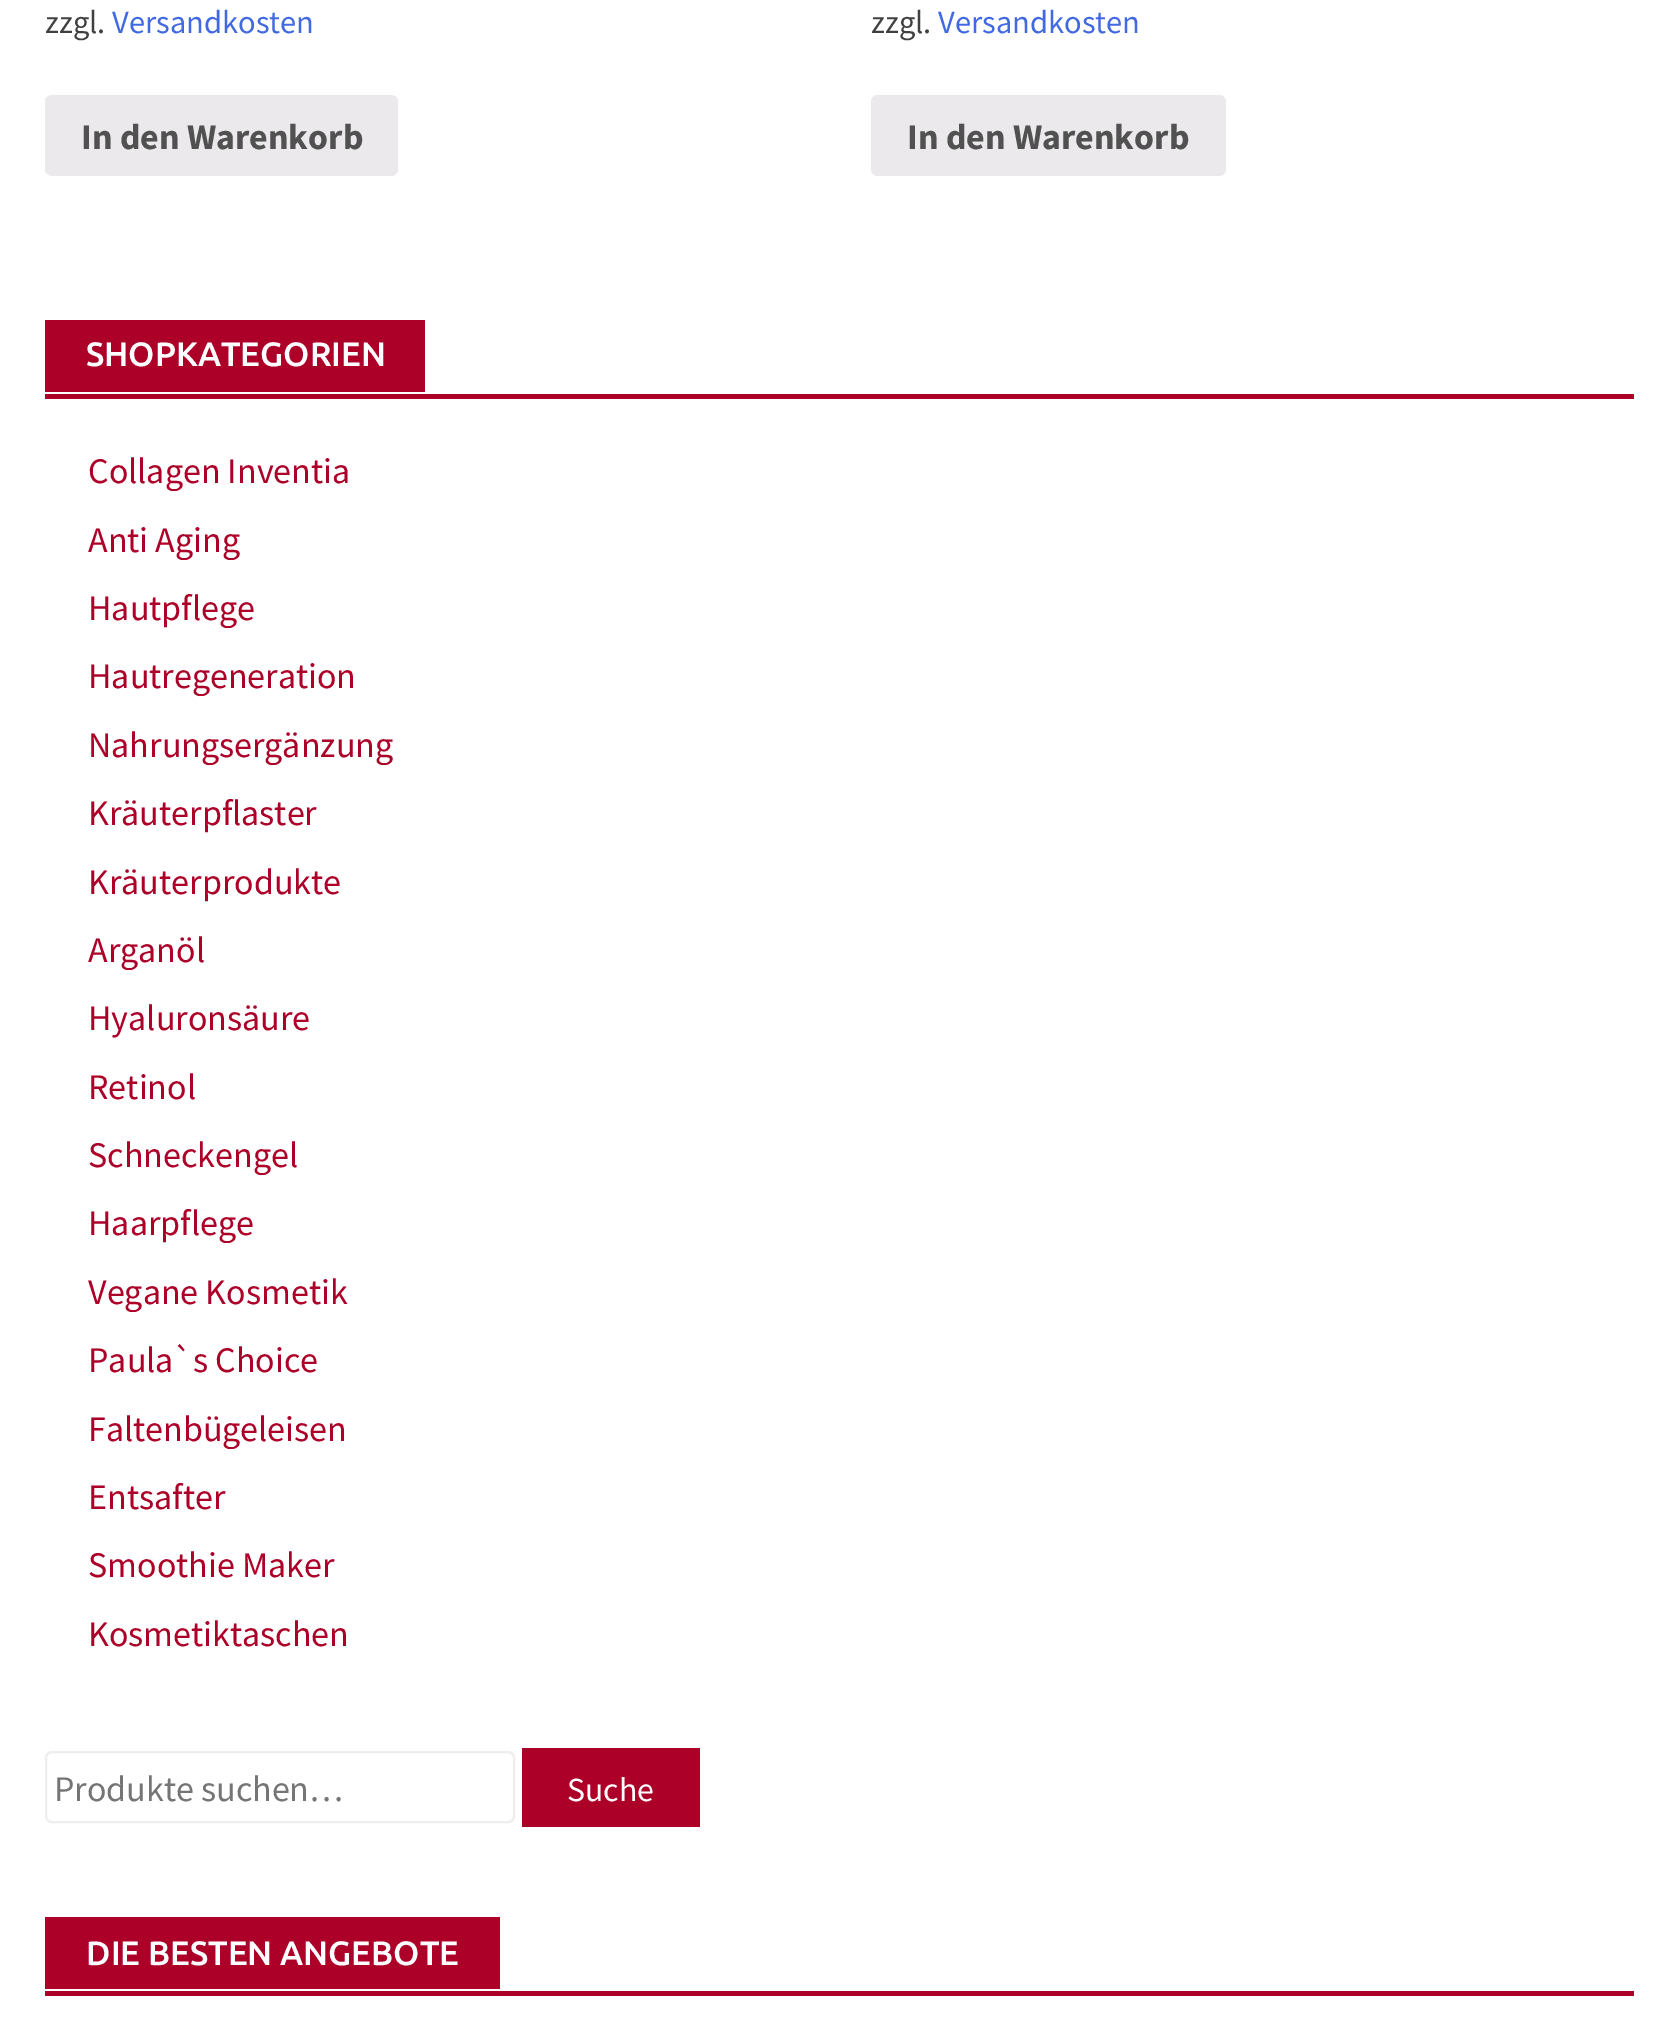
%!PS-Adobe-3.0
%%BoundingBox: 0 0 1678 2034
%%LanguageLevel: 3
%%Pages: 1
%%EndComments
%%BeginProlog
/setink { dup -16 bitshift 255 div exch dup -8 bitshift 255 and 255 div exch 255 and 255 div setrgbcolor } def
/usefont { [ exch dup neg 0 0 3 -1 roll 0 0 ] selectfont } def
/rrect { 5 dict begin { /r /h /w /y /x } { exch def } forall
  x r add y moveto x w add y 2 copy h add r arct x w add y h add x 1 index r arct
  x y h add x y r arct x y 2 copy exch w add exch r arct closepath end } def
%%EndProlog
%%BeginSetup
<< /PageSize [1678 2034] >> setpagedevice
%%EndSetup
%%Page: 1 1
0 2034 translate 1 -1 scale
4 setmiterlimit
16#FFFFFF setink
0 0 1678 2034 rectfill
/SourceSansPro-Regular 32.5 usefont
16#404040 setink
45 33 moveto (zzgl.) show
16#4169E1 setink
112 33 moveto (Versandkosten) show
16#EBE9EB setink
45 95 353 81 7 rrect fill
/SourceSansPro-Bold 36 usefont
16#515151 setink
81 149 moveto (In den Warenkorb) show
/SourceSansPro-Regular 32.5 usefont
16#404040 setink
871 33 moveto (zzgl.) show
16#4169E1 setink
938 33 moveto (Versandkosten) show
16#EBE9EB setink
871 95 355 81 7 rrect fill
/SourceSansPro-Bold 36 usefont
16#515151 setink
907 149 moveto (In den Warenkorb) show
16#AD0028 setink
45 394 1589 5 rectfill
45 320 380 72 rectfill
/Ubuntu-Medium 33.75 usefont
16#FFFFFF setink
86 366 moveto (SHOPKATEGORIEN) show
/SourceSansPro-Regular 36 usefont
16#AD0028 setink
[
    [(Collagen Inventia) 88 483]
    [(Anti Aging) 88 552]
    [(Hautpflege) 88 620]
    [(Hautregeneration) 88 688]
    [(Nahrungsergänzung) 88 757]
    [(Kräuterpflaster) 88 825]
    [(Kräuterprodukte) 88 894]
    [(Arganöl) 88 962]
    [(Hyaluronsäure) 88 1030]
    [(Retinol) 88 1099]
    [(Schneckengel) 88 1167]
    [(Haarpflege) 88 1235]
    [(Vegane Kosmetik) 88 1304]
    [(Paula`s Choice) 88 1372]
    [(Faltenbügeleisen) 88 1441]
    [(Entsafter) 88 1509]
    [(Smoothie Maker) 88 1577]
    [(Kosmetiktaschen) 88 1646]
] { aload pop moveto show } forall
16#EEEEEE setink
2 setlinewidth
46 1752 468 70 6 rrect stroke
16#757575 setink
54 1801 moveto (Produkte suchen…) show
16#AD0028 setink
522 1748 178 79 rectfill
/SourceSansPro-Regular 33.75 usefont
16#FFFFFF setink
567 1801 moveto (Suche) show
16#AD0028 setink
45 1991 1589 5 rectfill
45 1917 455 72 rectfill
/Ubuntu-Medium 33.75 usefont
16#FFFFFF setink
86 1965 moveto (DIE BESTEN ANGEBOTE) show
showpage
%%EOF
